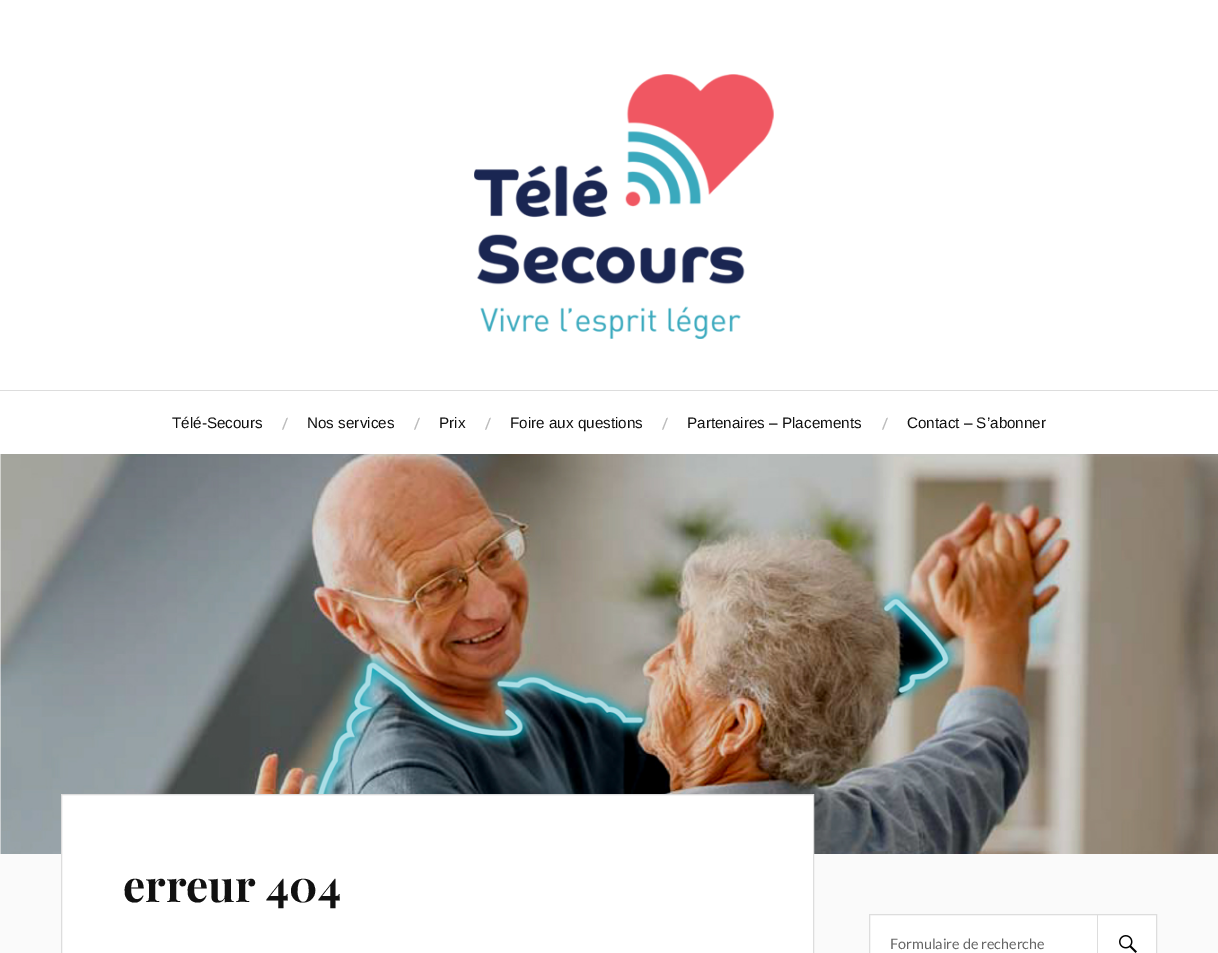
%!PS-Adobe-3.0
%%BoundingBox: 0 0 1218 953
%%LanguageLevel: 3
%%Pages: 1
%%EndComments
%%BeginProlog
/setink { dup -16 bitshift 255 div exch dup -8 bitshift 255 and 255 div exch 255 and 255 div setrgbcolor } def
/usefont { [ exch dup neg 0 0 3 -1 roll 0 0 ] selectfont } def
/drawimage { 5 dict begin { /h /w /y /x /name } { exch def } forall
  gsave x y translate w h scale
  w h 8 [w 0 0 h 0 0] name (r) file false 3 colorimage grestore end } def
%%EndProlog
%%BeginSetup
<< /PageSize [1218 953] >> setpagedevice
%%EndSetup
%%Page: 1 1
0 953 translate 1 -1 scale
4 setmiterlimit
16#FAFAFA setink
0 0 1218 953 rectfill
16#FFFFFF setink
0 0 1218 390 rectfill
(img1.raw) 474 74 300 265 drawimage
0 391 1218 63 rectfill
16#DDDDDD setink
0 390 1218 1 rectfill
/LiberationSans-Regular 15.25 usefont
16#111111 setink
172 428 moveto (Télé-Secours) show
/Lato-Bold 15 usefont
16#BBBBBB setink
282 429 moveto (/) show
/LiberationSans-Regular 15.25 usefont
16#111111 setink
307 428 moveto (Nos services) show
/Lato-Bold 15 usefont
16#BBBBBB setink
414 429 moveto (/) show
/LiberationSans-Regular 15.25 usefont
16#111111 setink
439 428 moveto (Prix) show
/Lato-Bold 15 usefont
16#BBBBBB setink
485 429 moveto (/) show
/LiberationSans-Regular 15.25 usefont
16#111111 setink
510 428 moveto (Foire aux questions) show
/Lato-Bold 15 usefont
16#BBBBBB setink
662 429 moveto (/) show
/LiberationSans-Regular 15.25 usefont
16#111111 setink
687 428 moveto (Partenaires – Placements) show
/Lato-Bold 15 usefont
16#BBBBBB setink
882 429 moveto (/) show
/LiberationSans-Regular 15.25 usefont
16#111111 setink
907 428 moveto (Contact – S’abonner) show
(img2.raw) 0 454 1218 400 drawimage
16#FFFFFF setink
61.5 794.5 moveto 813.5 794.5 lineto 813.5 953.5 lineto 61.5 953.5 lineto closepath gsave fill grestore
16#DDDDDD setink
stroke
/PlayfairDisplay-Bold 44 usefont
16#111111 setink
123 902 moveto (erreur 404) show
16#FFFFFF setink
869.5 914.5 moveto 1156.5 914.5 lineto 1156.5 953.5 lineto 869.5 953.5 lineto closepath gsave fill grestore
16#DDDDDD setink
stroke
/Lato-Regular 14.4 usefont
16#666666 setink
890 949 moveto (Formulaire de recherche) show
16#DDDDDD setink
1097 914 1 39 rectfill
(img3.raw) 1119 935 18 18 drawimage
showpage
%%EOF
